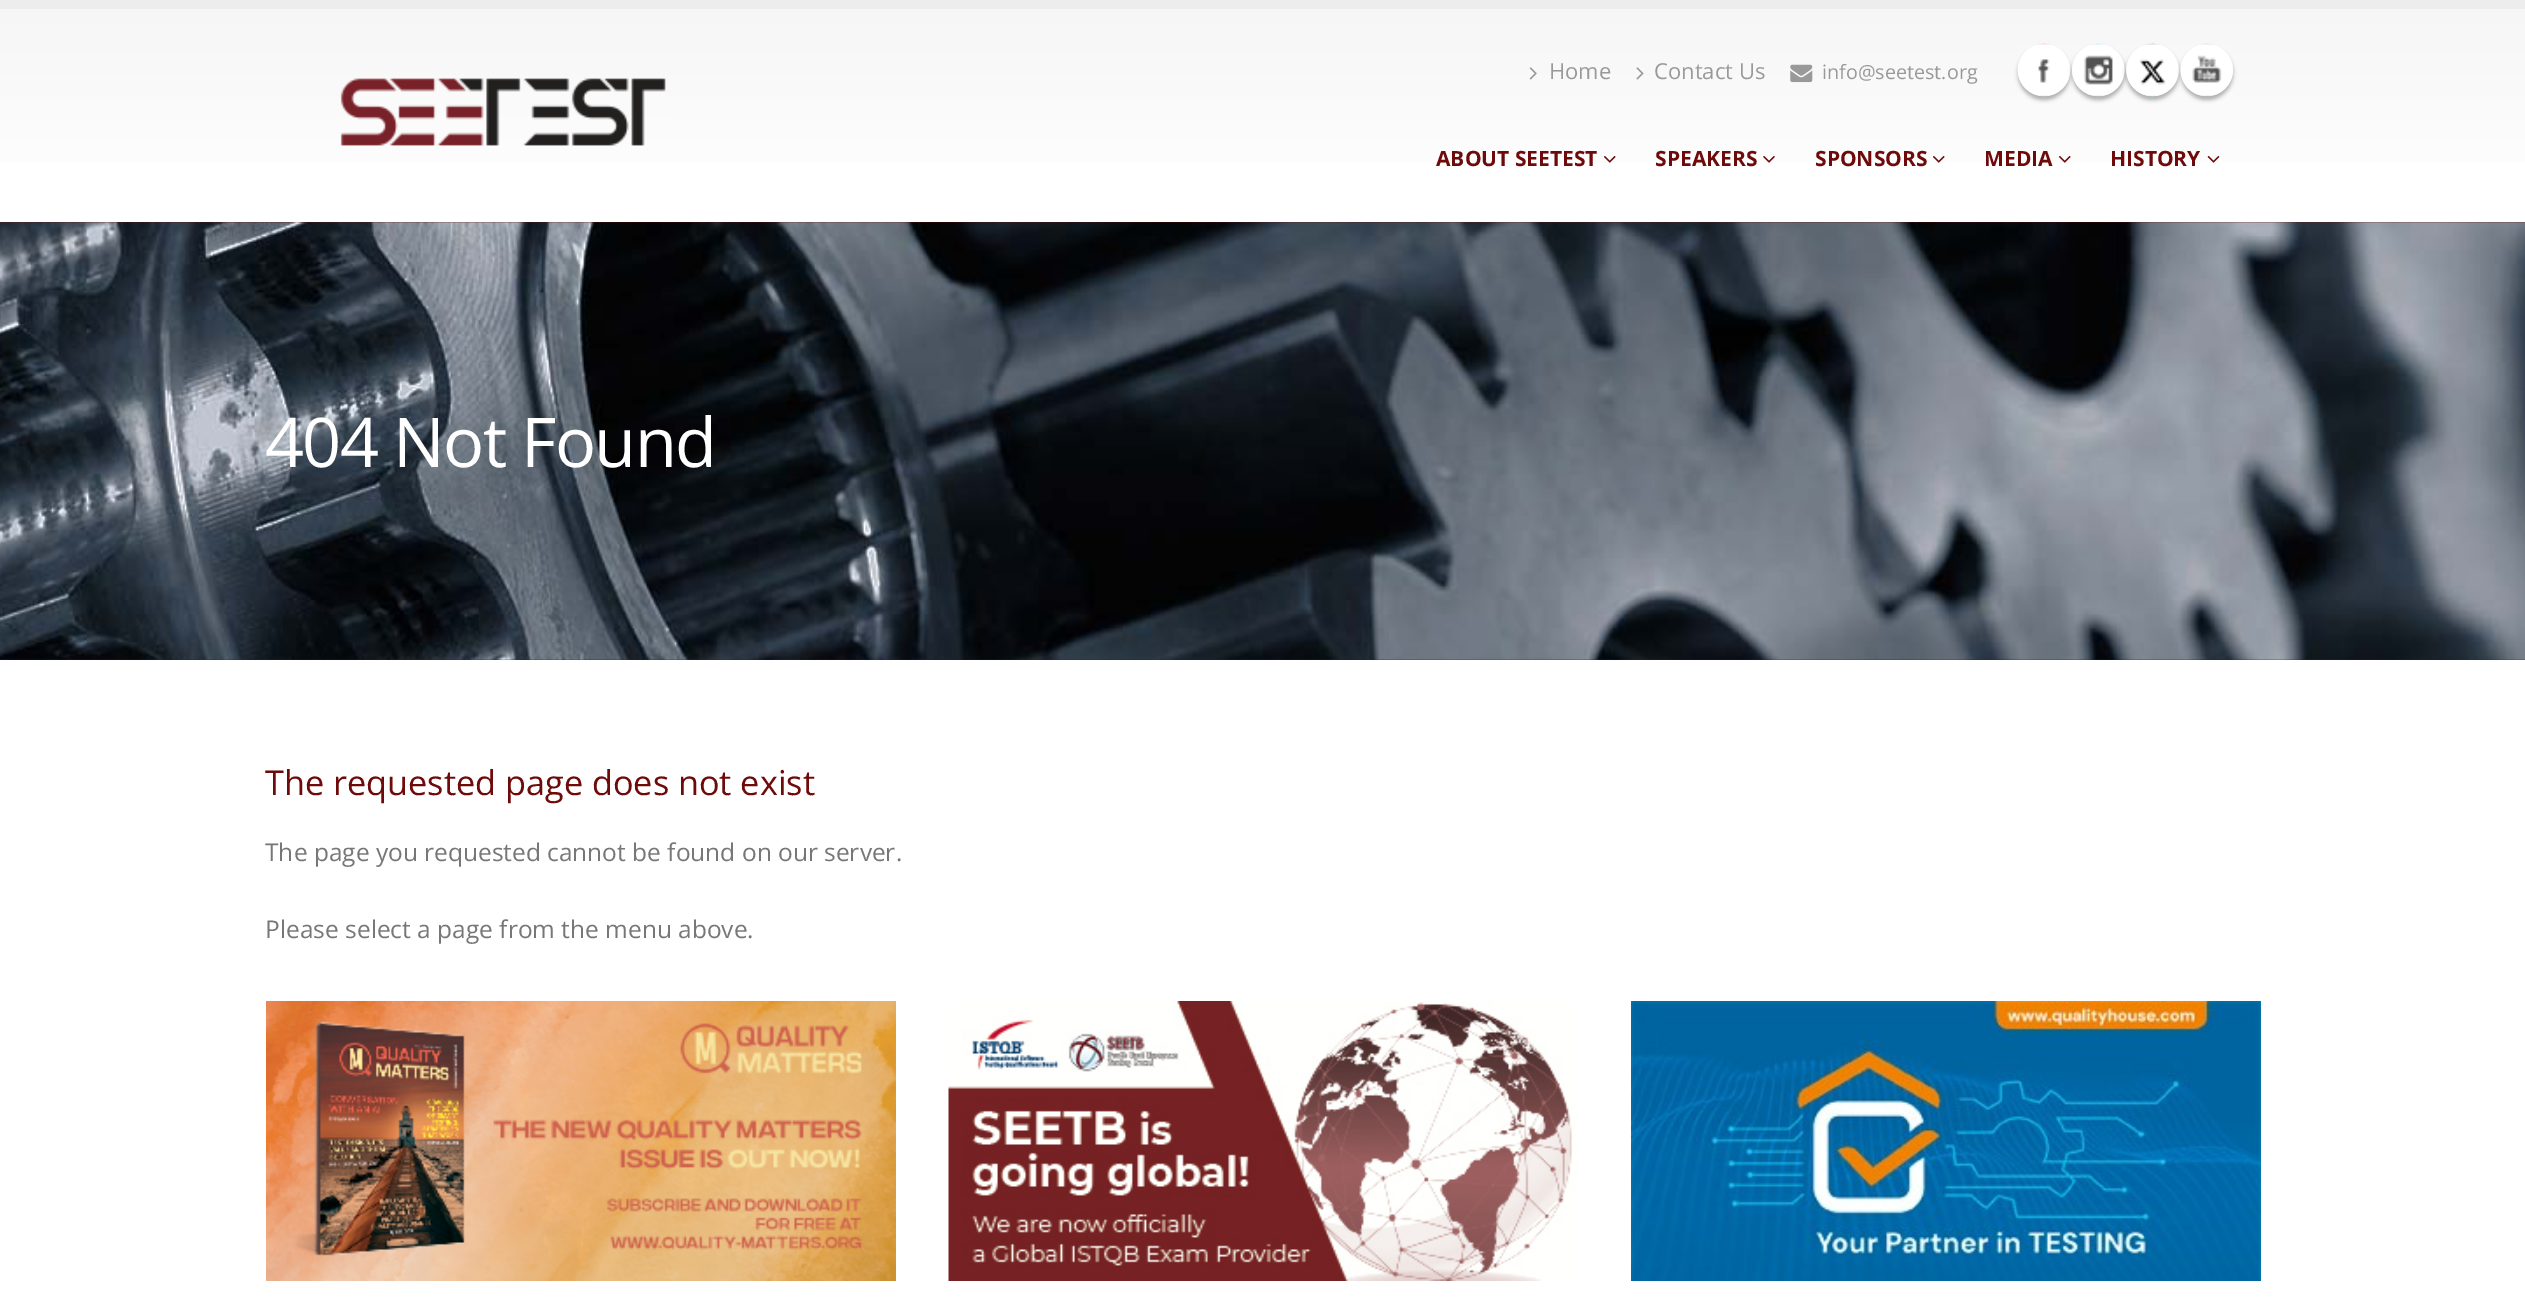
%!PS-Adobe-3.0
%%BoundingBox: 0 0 2525 1305
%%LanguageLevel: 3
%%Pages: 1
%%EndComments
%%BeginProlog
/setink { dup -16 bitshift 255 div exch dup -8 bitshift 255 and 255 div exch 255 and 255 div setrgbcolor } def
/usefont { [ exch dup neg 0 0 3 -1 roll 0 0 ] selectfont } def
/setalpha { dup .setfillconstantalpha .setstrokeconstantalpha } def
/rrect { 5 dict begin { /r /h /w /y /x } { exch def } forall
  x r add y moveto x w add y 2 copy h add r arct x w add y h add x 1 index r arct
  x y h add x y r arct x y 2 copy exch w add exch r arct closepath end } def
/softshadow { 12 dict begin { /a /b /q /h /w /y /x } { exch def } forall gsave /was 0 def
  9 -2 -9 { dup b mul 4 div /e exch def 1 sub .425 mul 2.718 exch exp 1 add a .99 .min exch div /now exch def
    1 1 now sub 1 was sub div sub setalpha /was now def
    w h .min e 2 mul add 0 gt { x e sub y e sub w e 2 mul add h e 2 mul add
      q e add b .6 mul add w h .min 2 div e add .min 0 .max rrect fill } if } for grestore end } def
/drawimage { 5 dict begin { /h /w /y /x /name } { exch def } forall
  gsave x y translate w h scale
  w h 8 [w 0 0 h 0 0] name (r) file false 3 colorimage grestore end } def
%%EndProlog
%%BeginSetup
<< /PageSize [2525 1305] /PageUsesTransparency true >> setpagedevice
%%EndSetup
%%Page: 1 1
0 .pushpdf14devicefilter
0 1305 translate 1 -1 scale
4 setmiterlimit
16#FFFFFF setink
0 0 2525 1305 rectfill
gsave 0 9 moveto 2525 9 lineto 2525 163 lineto 0 163 lineto closepath clip newpath
<< /ShadingType 2 /ColorSpace /DeviceRGB /Coords [1263 9 1263 222] /Extend [true true] /Function << /FunctionType 2 /Domain [0 1] /C0 [0.965 0.965 0.965] /C1 [1 1 1] /N 1 >> >> shfill grestore
16#EDEDED setink
0 0 2525 9 rectfill
(img1.raw) 1529 67 8 13 drawimage
/OpenSans-Regular 22 usefont
16#999999 setink
1549 79 moveto (Home) show
(img2.raw) 1636 67 8 13 drawimage
1654 79 moveto (Contact Us) show
(img3.raw) 1790 64 23 19 drawimage
/OpenSans-Regular 19.75 usefont
1822 79 moveto (info@seetest.org) show
16#000000 setink
2018 47 52 53 26 2 0.3 softshadow
(img4.raw) 2017 43 54 54 drawimage
2072 47 53 53 26.5 2 0.3 softshadow
(img5.raw) 2072 43 53 54 drawimage
2126 47 53 53 26.5 2 0.3 softshadow
(img6.raw) 2126 43 53 54 drawimage
2181 47 52 53 26 2 0.3 softshadow
(img7.raw) 2180 43 53 54 drawimage
(img8.raw) 340 78 326 68 drawimage
/OpenSans-Bold 21 usefont
16#6E0A0A setink
1436 166 moveto (ABOUT SEETEST) show
(img9.raw) 1604 156 12 7 drawimage
1655 166 moveto (SPEAKERS) show
(img10.raw) 1763 156 12 7 drawimage
1815 166 moveto (SPONSORS) show
(img9.raw) 1933 156 12 7 drawimage
1984 166 moveto (MEDIA) show
(img9.raw) 2059 156 12 7 drawimage
2110 166 moveto (HISTORY) show
(img11.raw) 2207 156 13 7 drawimage
(img12.raw) 0 222 2525 438 drawimage
/OpenSans-Regular 68.5 usefont
16#FFFFFF setink
265 467 moveto -1.75 0 (404 Not Found) ashow
/OpenSans-Regular 34.25 usefont
16#6E0A0A setink
265 795 moveto (The requested page does not exist) show
/OpenSans-Regular 24.5 usefont
16#777777 setink
265 861 moveto (The page you requested cannot be found on our server.) show
265 938 moveto (Please select a page from the menu above.) show
(img13.raw) 266 1001 630 280 drawimage
(img14.raw) 948 1001 630 280 drawimage
(img15.raw) 1631 1001 630 280 drawimage
.poppdf14devicefilter showpage
%%EOF
